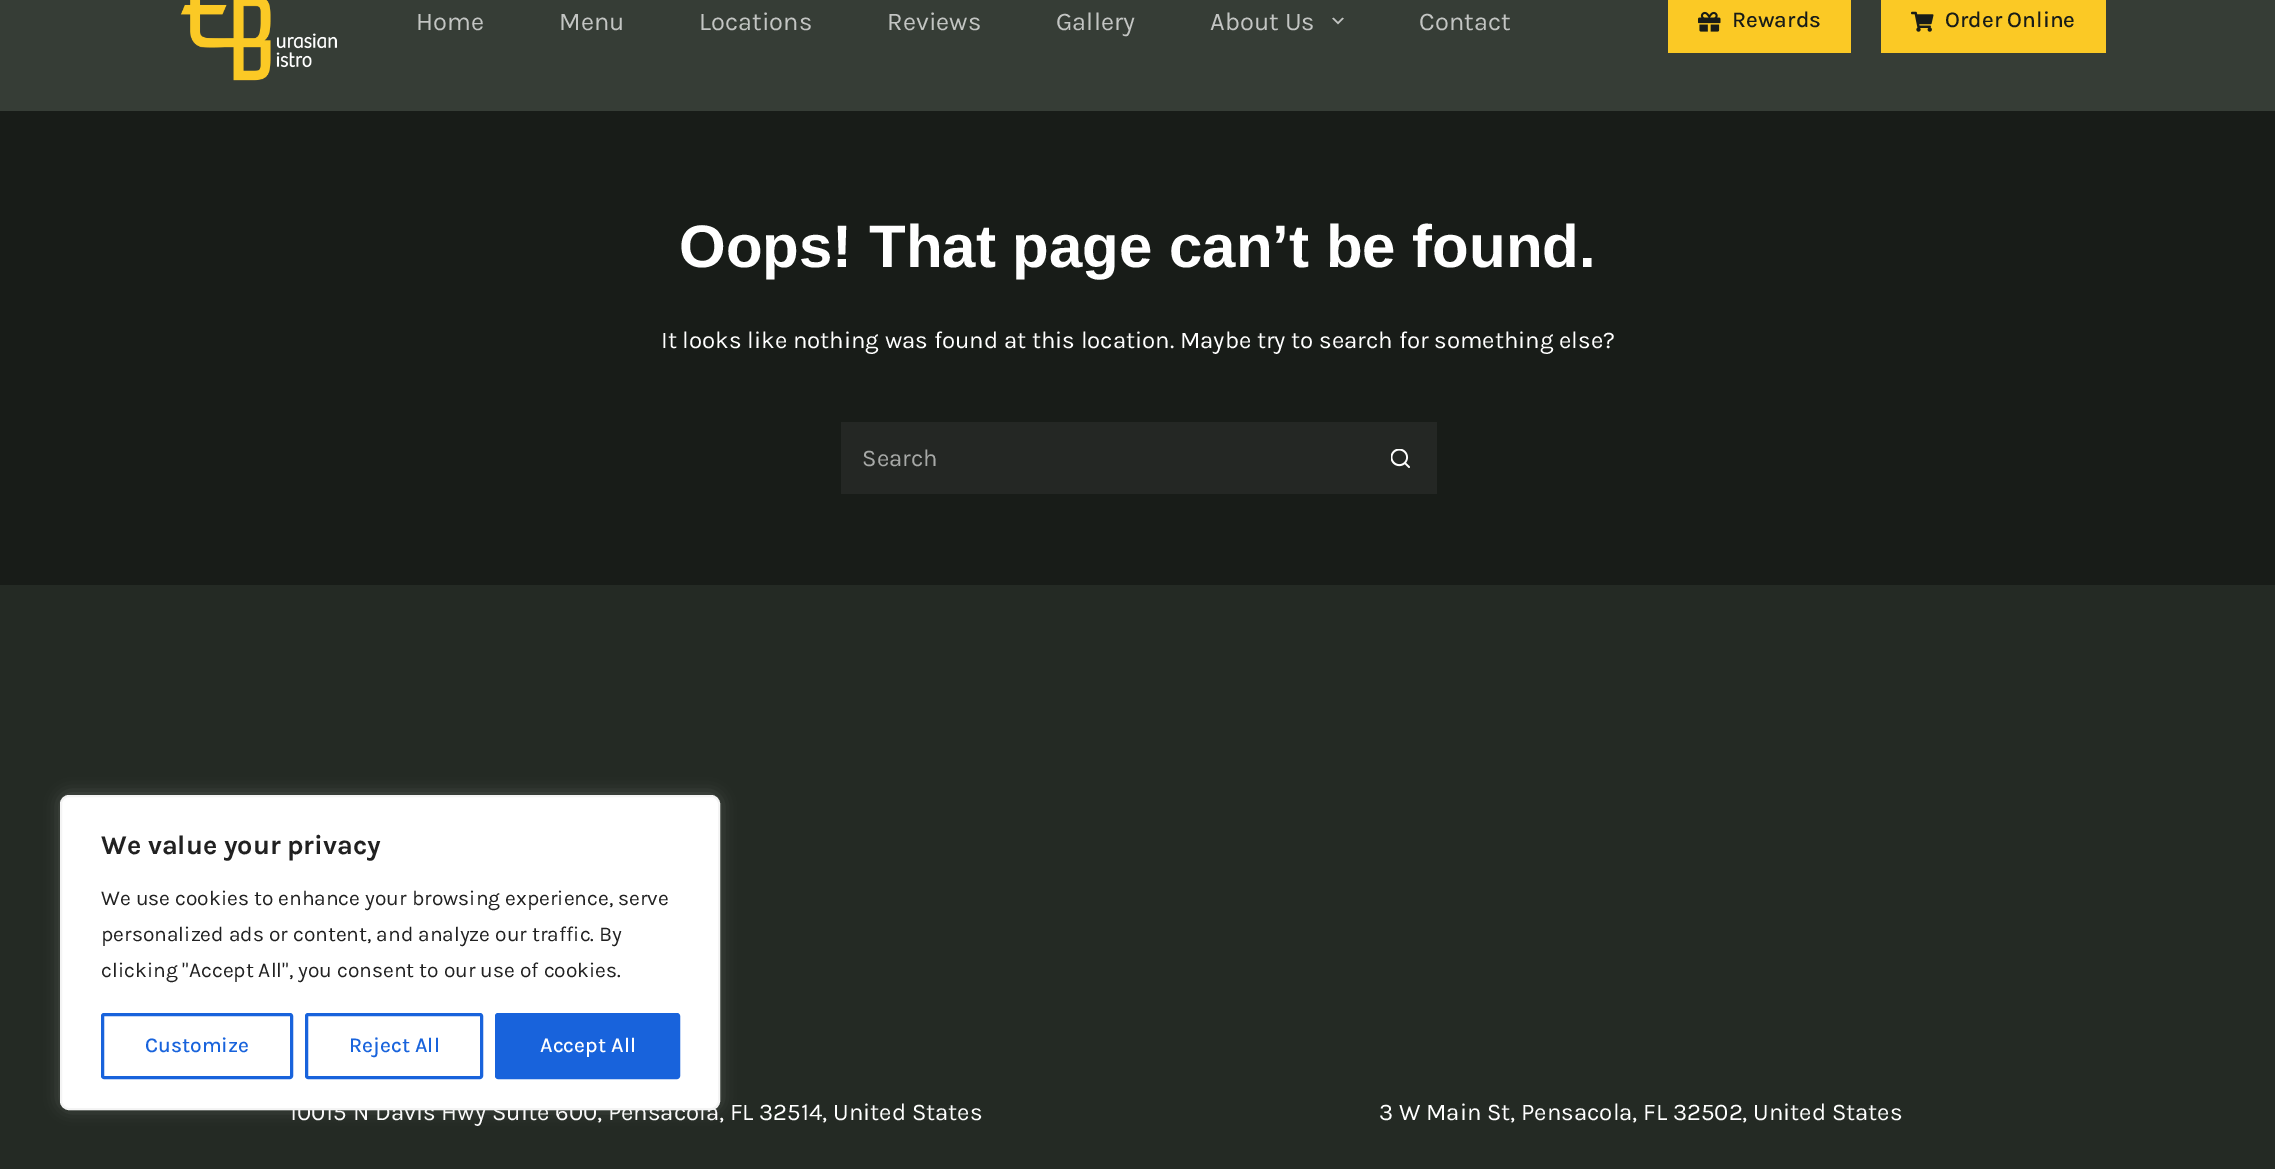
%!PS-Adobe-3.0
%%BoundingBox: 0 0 2275 1169
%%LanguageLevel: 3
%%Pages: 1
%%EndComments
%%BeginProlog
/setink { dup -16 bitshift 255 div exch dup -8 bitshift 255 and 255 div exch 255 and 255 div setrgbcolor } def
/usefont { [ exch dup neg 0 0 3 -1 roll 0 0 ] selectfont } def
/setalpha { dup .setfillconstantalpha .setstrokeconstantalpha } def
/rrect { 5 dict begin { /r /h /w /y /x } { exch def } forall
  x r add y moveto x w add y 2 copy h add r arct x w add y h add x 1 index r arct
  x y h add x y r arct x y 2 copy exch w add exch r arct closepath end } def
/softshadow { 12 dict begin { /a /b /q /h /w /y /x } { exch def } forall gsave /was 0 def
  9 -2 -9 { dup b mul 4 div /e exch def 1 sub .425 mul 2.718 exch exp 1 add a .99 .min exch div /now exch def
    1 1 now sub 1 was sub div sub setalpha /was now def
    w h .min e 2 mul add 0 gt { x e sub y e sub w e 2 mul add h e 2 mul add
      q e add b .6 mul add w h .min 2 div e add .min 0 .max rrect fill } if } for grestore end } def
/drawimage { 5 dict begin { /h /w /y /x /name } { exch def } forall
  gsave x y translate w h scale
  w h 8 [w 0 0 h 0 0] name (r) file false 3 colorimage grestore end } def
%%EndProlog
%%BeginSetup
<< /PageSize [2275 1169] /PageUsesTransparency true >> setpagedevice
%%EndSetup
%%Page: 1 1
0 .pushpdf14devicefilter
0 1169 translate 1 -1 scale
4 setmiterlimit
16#181C18 setink
0 0 2275 1169 rectfill
16#363D36 setink
0 0 2275 111 rectfill
(img1.raw) 180 0 157 81 drawimage
/Karla-Regular 25.5 usefont
16#C3C5C3 setink
[
    [(Home) 416 30]
    [(Menu) 559 30]
    [(Locations) 699 30]
    [(Reviews) 887 30]
    [(Gallery) 1056 30]
    [(About Us) 1210 30]
] { aload pop moveto show } forall
(img2.raw) 1332 17 12 8 drawimage
1419 30 moveto (Contact) show
16#FBC925 setink
1668 0 183 53 rectfill
(img3.raw) 1698 11 23 21 drawimage
/Karla-Medium 22.5 usefont
16#181C18 setink
1732 27 moveto (Rewards) show
16#FBC925 setink
1881 0 225 53 rectfill
(img4.raw) 1911 11 23 21 drawimage
16#181C18 setink
1945 27 moveto (Order Online) show
/LiberationSans-Bold 60 usefont
16#FFFFFF setink
679 267 moveto (Oops! That page can’t be found.) show
/Karla-Regular 24 usefont
661 348 moveto (It looks like nothing was found at this location. Maybe try to search for something else?) show
16#242724 setink
841 422 596 72 rectfill
16#A7A9A7 setink
862 466 moveto (Search) show
(img5.raw) 1391 449 19 19 drawimage
16#242A24 setink
0 585 2275 584 rectfill
16#FFFFFF setink
289 1120 moveto (10015 N Davis Hwy Suite 600, Pensacola, FL 32514, United States) show
1379 1120 moveto (3 W Main St, Pensacola, FL 32502, United States) show
16#ACABAB setink
60 794 660 315 9 7.5 0.3 softshadow
16#FFFFFF setink
61 796 658 313 8 rrect gsave fill grestore
16#F4F4F4 setink
2 setlinewidth
stroke
/Karla-Bold 27 usefont
16#212121 setink
101 854 moveto (We value your privacy) show
/Karla-Regular 21 usefont
[
    [(We use cookies to enhance your browsing experience, serve) 101 905]
    [(personalized ads or content, and analyze our traffic. By) 101 941]
    [(clicking "Accept All", you consent to our use of cookies.) 101 977]
] { aload pop moveto show } forall
16#1863DC setink
3 setlinewidth
102.5 1014.5 189 63 1.5 rrect stroke
/Karla-Medium 21 usefont
145 1052 moveto (Customize) show
306.5 1014.5 175 63 1.5 rrect stroke
349 1052 moveto (Reject All) show
496.5 1014.5 182 63 1.5 rrect gsave fill grestore
stroke
16#FFFFFF setink
540 1052 moveto (Accept All) show
.poppdf14devicefilter showpage
%%EOF
